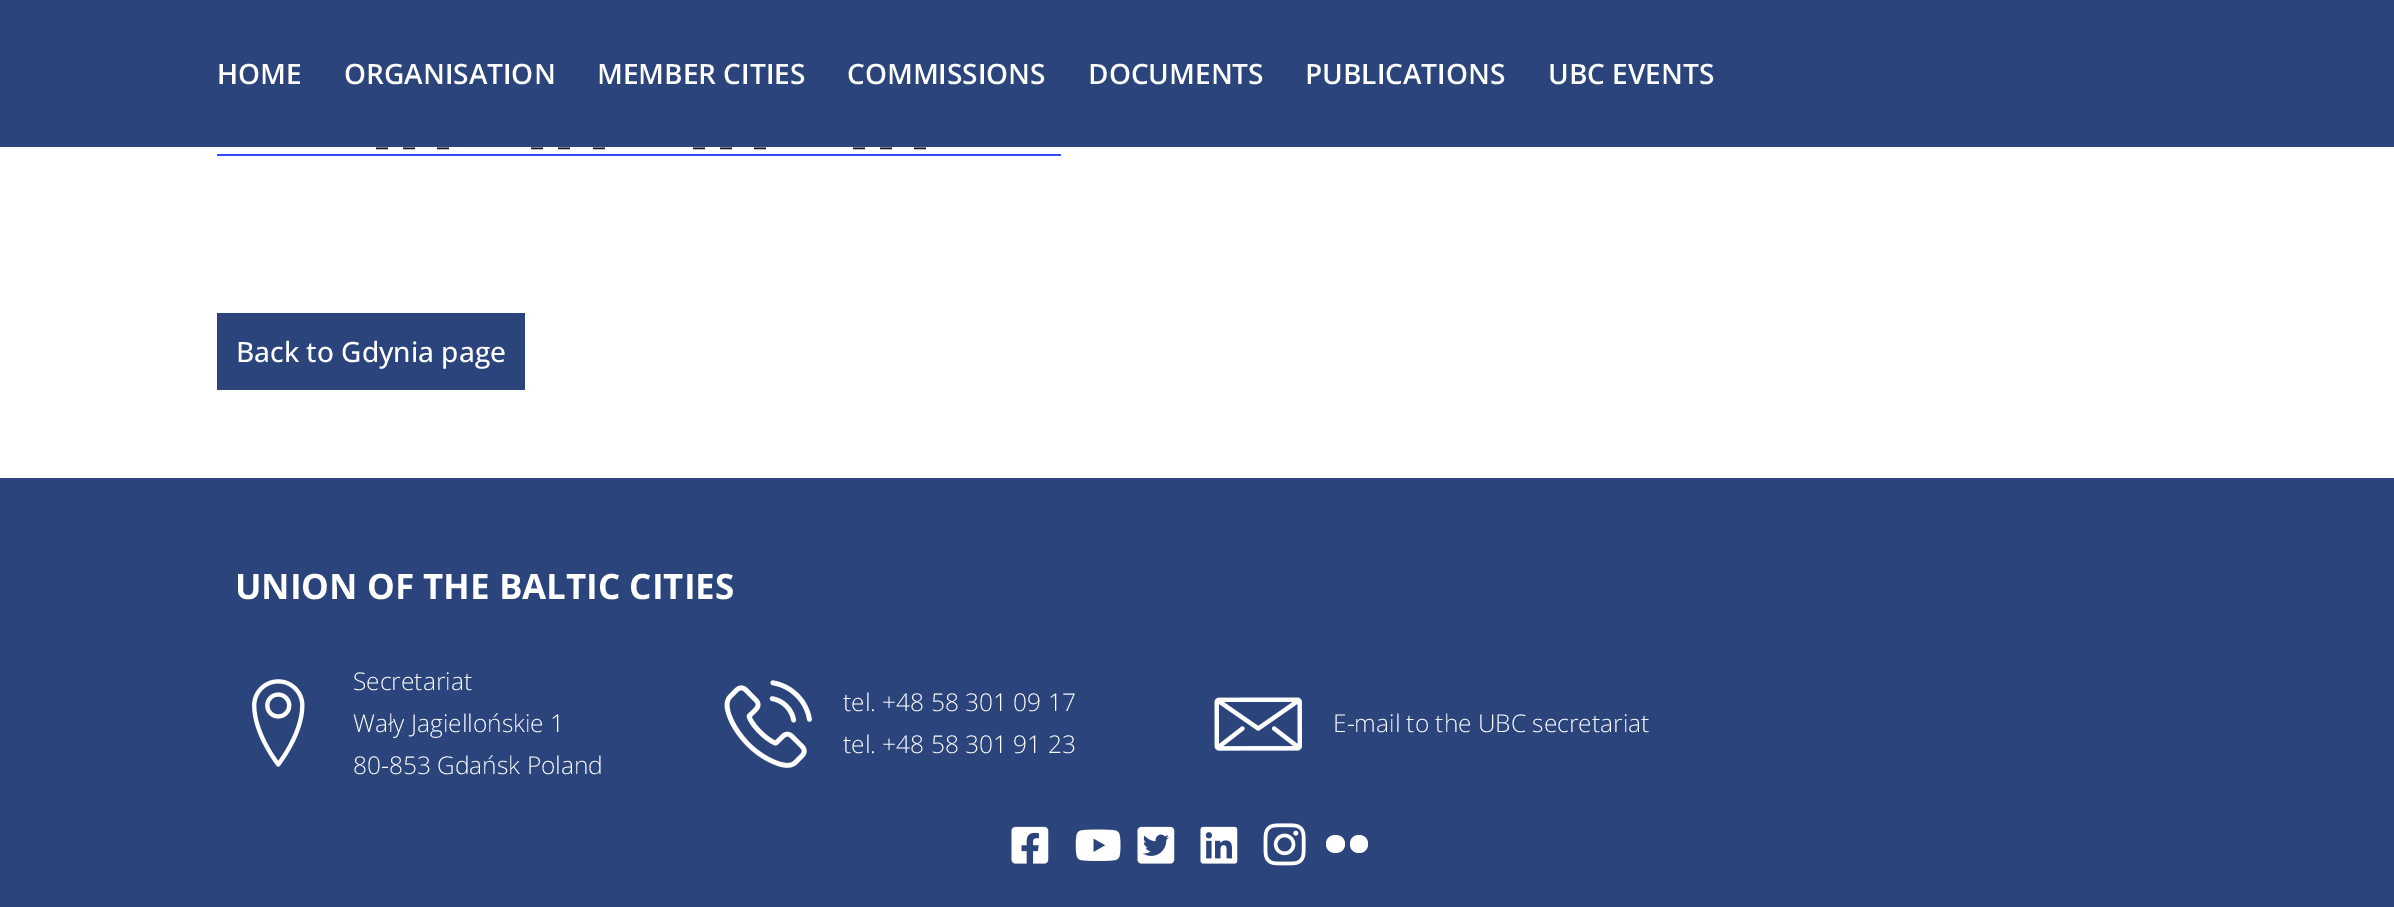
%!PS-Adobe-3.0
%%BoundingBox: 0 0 2394 907
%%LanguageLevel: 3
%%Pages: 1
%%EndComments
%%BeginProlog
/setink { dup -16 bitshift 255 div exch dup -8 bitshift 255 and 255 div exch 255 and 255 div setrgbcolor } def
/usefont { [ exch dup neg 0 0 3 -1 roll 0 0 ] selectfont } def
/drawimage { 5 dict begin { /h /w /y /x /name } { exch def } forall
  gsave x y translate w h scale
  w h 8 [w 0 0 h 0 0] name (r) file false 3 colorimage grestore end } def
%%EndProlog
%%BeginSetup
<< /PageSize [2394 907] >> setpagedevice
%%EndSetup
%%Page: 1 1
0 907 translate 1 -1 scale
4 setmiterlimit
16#FFFFFF setink
0 0 2394 907 rectfill
/OpenSans-Medium 28 usefont
16#141827 setink
[
    [(_x_) 376 145]
    [(_x_) 531 145]
    [(_x_) 693 145]
    [(_x_) 853 145]
] { aload pop moveto show } forall
16#2B447C setink
0 0 2394 147 rectfill
/OpenSans-SemiBold 28 usefont
16#FFFFFF setink
[
    [(HOME) 217 84]
    [(ORGANISATION) 344 84]
    [(MEMBER CITIES) 597 84]
    [(COMMISSIONS) 847 84]
    [(DOCUMENTS) 1088 84]
    [(PUBLICATIONS) 1305 84]
    [(UBC EVENTS) 1548 84]
] { aload pop moveto show } forall
/OpenSans-Medium 28 usefont
16#141827 setink
[
    [(_) 437 145]
    [(_) 593 145]
    [(_) 754 145]
    [(_) 914 145]
] { aload pop moveto show } forall
16#334AFF setink
217 154 844 2 rectfill
16#2B447C setink
217 313 308 77 rectfill
16#FFFFFF setink
236 362 moveto (Back to Gdynia page) show
16#2B447C setink
0 478 2394 429 rectfill
/OpenSans-Bold 35 usefont
16#FFFFFF setink
235 599 moveto (UNION OF THE BALTIC CITIES) show
(img1.raw) 252 679 53 88 drawimage
/OpenSans-Light 24.5 usefont
[
    [(Secretariat) 353 690]
    [(Wały Jagiellońskie 1) 353 732]
    [(80-853 Gdańsk Poland) 353 774]
] { aload pop moveto show } forall
(img2.raw) 724 680 88 88 drawimage
843 711 moveto (tel. +48 58 301 09 17) show
843 753 moveto (tel. +48 58 301 91 23) show
(img3.raw) 1214 697 88 54 drawimage
1333 732 moveto (E-mail to the UBC secretariat) show
(img4.raw) 1011 826 38 38 drawimage
(img5.raw) 1075 829 46 32 drawimage
(img6.raw) 1137 826 38 38 drawimage
(img7.raw) 1200 826 38 38 drawimage
(img8.raw) 1263 823 43 43 drawimage
1368 844 moveto 1368 856 1350 856 1350 844 curveto 1350 832 1368 832 1368 844 curveto closepath 1345 844 moveto 1345 856 1326 856 1326 844 curveto 1326 832 1345 832 1345 844 curveto closepath fill
showpage
%%EOF
